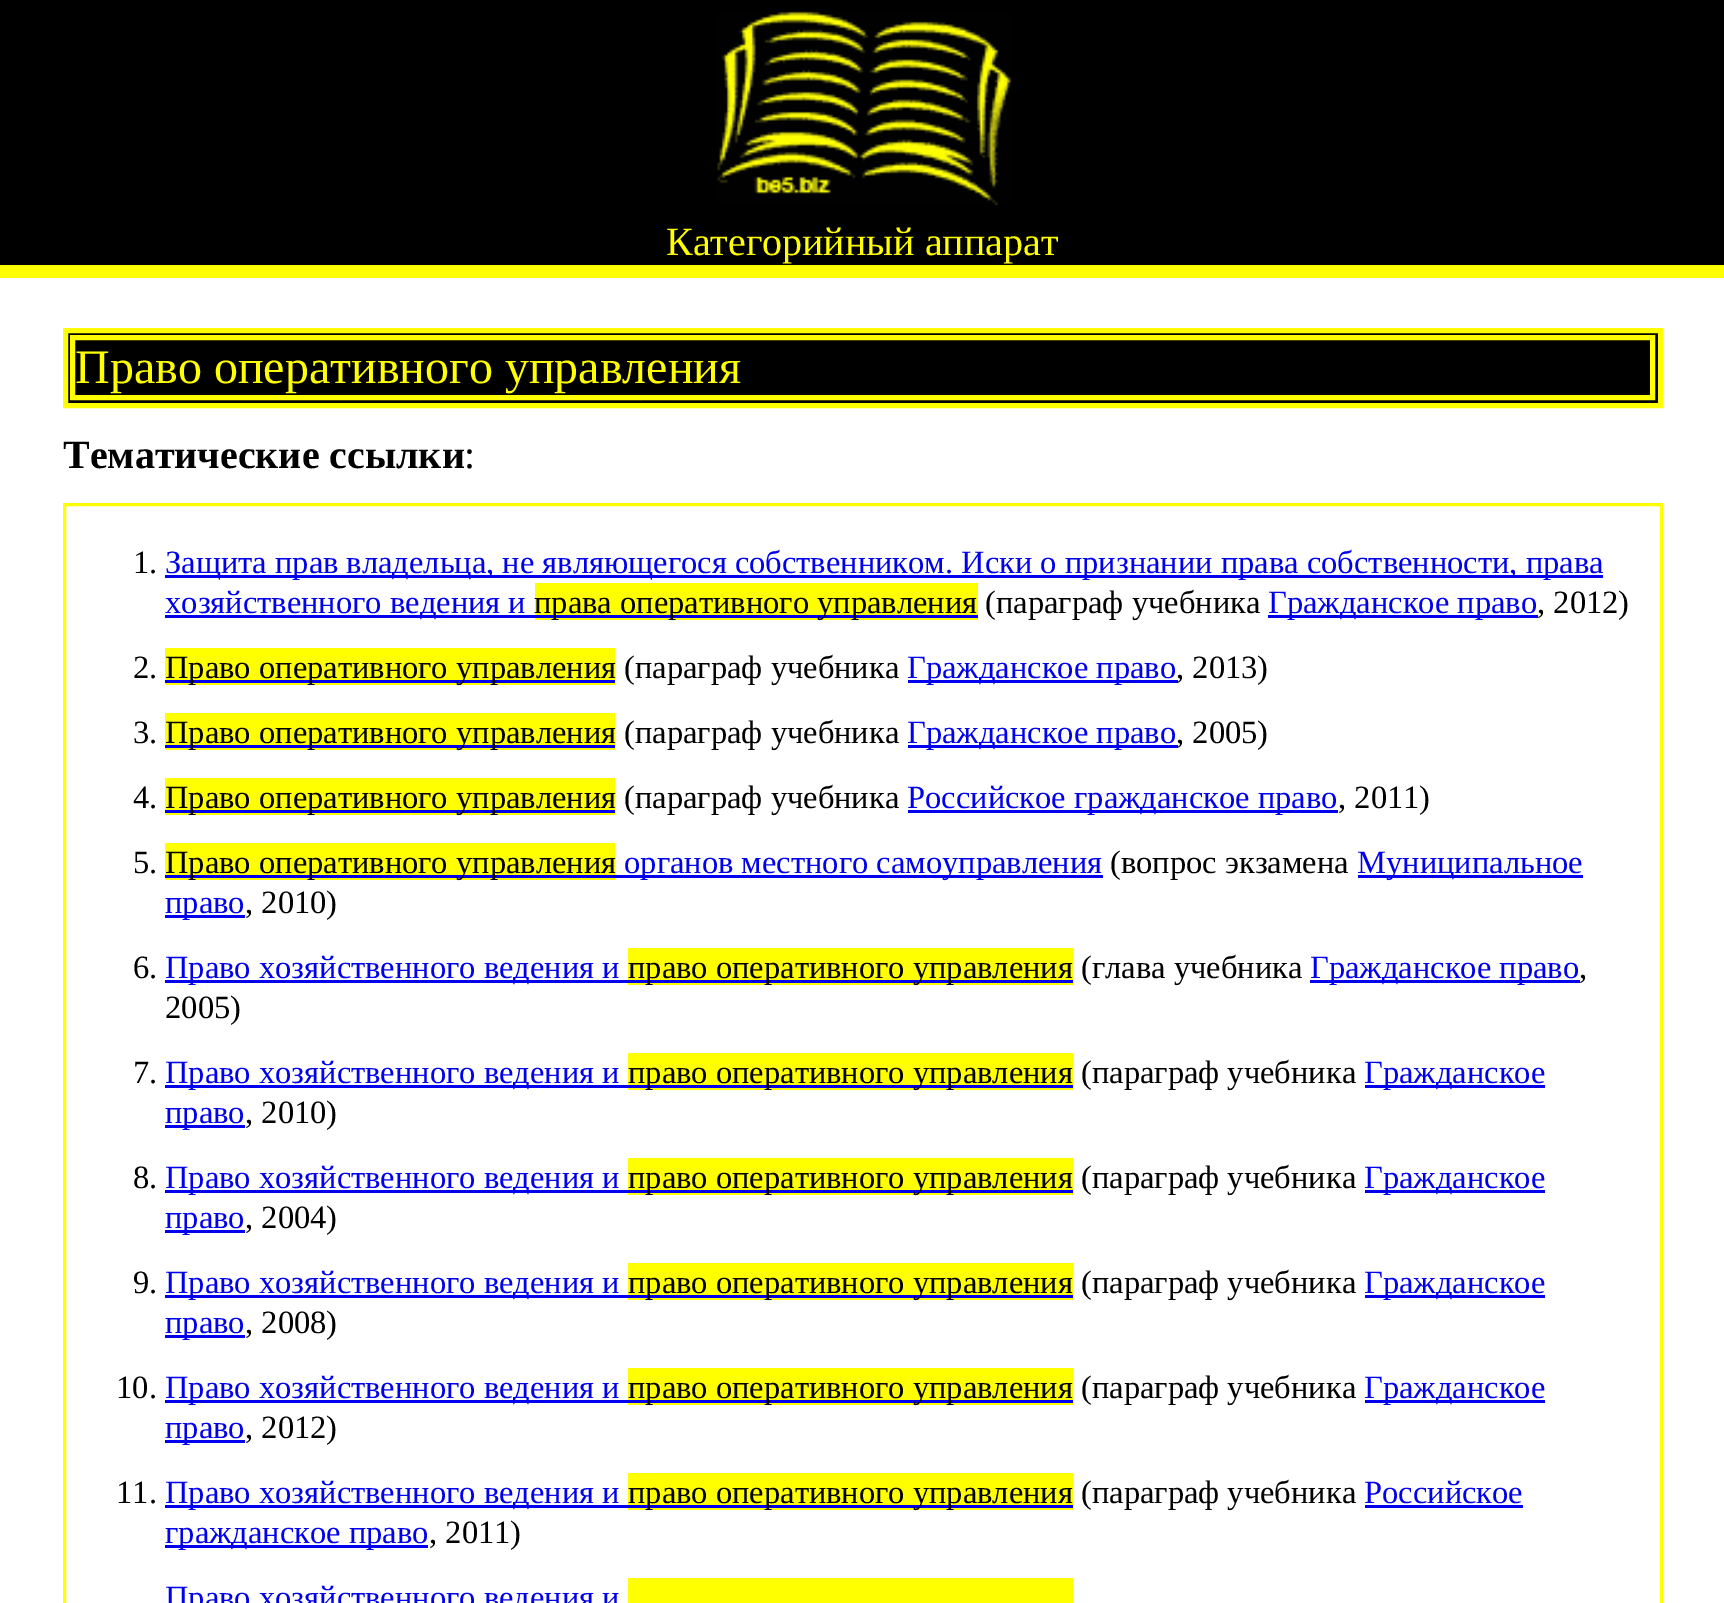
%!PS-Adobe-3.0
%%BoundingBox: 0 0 1724 1603
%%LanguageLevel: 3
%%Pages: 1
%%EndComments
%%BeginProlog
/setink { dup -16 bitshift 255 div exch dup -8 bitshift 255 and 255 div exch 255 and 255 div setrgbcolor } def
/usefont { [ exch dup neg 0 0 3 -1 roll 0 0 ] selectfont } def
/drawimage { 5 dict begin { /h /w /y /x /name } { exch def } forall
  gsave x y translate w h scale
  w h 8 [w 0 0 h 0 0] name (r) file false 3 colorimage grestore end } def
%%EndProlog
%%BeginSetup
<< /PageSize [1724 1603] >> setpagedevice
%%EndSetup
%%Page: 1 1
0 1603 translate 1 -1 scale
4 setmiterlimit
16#FFFFFF setink
0 0 1724 1603 rectfill
16#000000 setink
0 0 1724 265 rectfill
16#FFFF00 setink
0 265 1724 13 rectfill
(img1.raw) 717 11 294 194 drawimage
/LiberationSerif-Regular 40 usefont
666 255 moveto (Категорийный аппарат) show
16#000000 setink
65.5 330.5 moveto 1660.5 330.5 lineto 1660.5 405.5 lineto 65.5 405.5 lineto closepath gsave fill grestore
16#FFFF00 setink
5 setlinewidth
stroke
72.5 337.5 1580 60 rectstroke
/LiberationSerif-Regular 48 usefont
75 383 moveto (Право оперативного управления) show
/LiberationSerif-Bold 40 usefont
16#000000 setink
63 468 moveto (Тематические ссылки) show
/LiberationSerif-Regular 40 usefont
464 468 moveto (:) show
16#FFFF00 setink
3 setlinewidth
64.5 504.5 1597 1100 rectstroke
/LiberationSerif-Regular 32.5 usefont
16#000000 setink
133 573 moveto (1.) show
16#0000EE setink
165 575 1438 3 rectfill
165 573 moveto (Защита прав владельца, не являющегося собственником. Иски о признании права собственности, права) show
165 615 370 3 rectfill
165 613 moveto (хозяйственного ведения и) show
16#FFFF00 setink
535 583 443 37 rectfill
16#0000EE setink
535 615 443 3 rectfill
16#000000 setink
534 613 moveto (права оперативного управления \(параграф учебника) show
16#0000EE setink
1268 615 270 3 rectfill
1268 613 moveto (Гражданское право) show
16#000000 setink
1537 613 moveto (, 2012\)) show
133 678 moveto (2.) show
16#FFFF00 setink
165 648 450 37 rectfill
16#0000EE setink
165 680 450 3 rectfill
16#000000 setink
165 678 moveto (Право оперативного управления \(параграф учебника) show
16#0000EE setink
908 680 270 3 rectfill
907 678 moveto (Гражданское право) show
16#000000 setink
1176 678 moveto (, 2013\)) show
133 743 moveto (3.) show
16#FFFF00 setink
165 713 450 37 rectfill
16#0000EE setink
165 745 450 3 rectfill
16#000000 setink
165 743 moveto (Право оперативного управления \(параграф учебника) show
16#0000EE setink
908 745 270 3 rectfill
907 743 moveto (Гражданское право) show
16#000000 setink
1176 743 moveto (, 2005\)) show
133 808 moveto (4.) show
16#FFFF00 setink
165 778 450 37 rectfill
16#0000EE setink
165 810 450 3 rectfill
16#000000 setink
165 808 moveto (Право оперативного управления \(параграф учебника) show
16#0000EE setink
908 810 430 3 rectfill
907 808 moveto (Российское гражданское право) show
16#000000 setink
1338 808 moveto (, 2011\)) show
133 873 moveto (5.) show
16#FFFF00 setink
165 843 450 37 rectfill
16#0000EE setink
165 875 450 3 rectfill
16#000000 setink
165 873 moveto (Право оперативного управления) show
16#0000EE setink
615 875 488 3 rectfill
624 873 moveto (органов местного самоуправления) show
16#000000 setink
1110 873 moveto (\(вопрос экзамена) show
16#0000EE setink
1358 875 225 3 rectfill
1357 873 moveto (Муниципальное) show
165 915 80 3 rectfill
165 913 moveto (право) show
16#000000 setink
245 913 moveto (, 2010\)) show
133 978 moveto (6.) show
16#0000EE setink
165 980 463 3 rectfill
165 978 moveto (Право хозяйственного ведения и) show
16#FFFF00 setink
628 948 445 37 rectfill
16#0000EE setink
628 980 445 3 rectfill
16#000000 setink
628 978 moveto (право оперативного управления \(глава учебника) show
16#0000EE setink
1310 980 270 3 rectfill
1310 978 moveto (Гражданское право) show
16#000000 setink
[
    [(,) 1579 978]
    [(2005\)) 165 1018]
    [(7.) 133 1083]
] { aload pop moveto show } forall
16#0000EE setink
165 1085 463 3 rectfill
165 1083 moveto (Право хозяйственного ведения и) show
16#FFFF00 setink
628 1053 445 37 rectfill
16#0000EE setink
628 1085 445 3 rectfill
16#000000 setink
628 1083 moveto (право оперативного управления \(параграф учебника) show
16#0000EE setink
1365 1085 180 3 rectfill
1364 1083 moveto (Гражданское) show
165 1125 80 3 rectfill
165 1123 moveto (право) show
16#000000 setink
245 1123 moveto (, 2010\)) show
133 1188 moveto (8.) show
16#0000EE setink
165 1190 463 3 rectfill
165 1188 moveto (Право хозяйственного ведения и) show
16#FFFF00 setink
628 1158 445 37 rectfill
16#0000EE setink
628 1190 445 3 rectfill
16#000000 setink
628 1188 moveto (право оперативного управления \(параграф учебника) show
16#0000EE setink
1365 1190 180 3 rectfill
1364 1188 moveto (Гражданское) show
165 1230 80 3 rectfill
165 1228 moveto (право) show
16#000000 setink
245 1228 moveto (, 2004\)) show
133 1293 moveto (9.) show
16#0000EE setink
165 1295 463 3 rectfill
165 1293 moveto (Право хозяйственного ведения и) show
16#FFFF00 setink
628 1263 445 37 rectfill
16#0000EE setink
628 1295 445 3 rectfill
16#000000 setink
628 1293 moveto (право оперативного управления \(параграф учебника) show
16#0000EE setink
1365 1295 180 3 rectfill
1364 1293 moveto (Гражданское) show
165 1335 80 3 rectfill
165 1333 moveto (право) show
16#000000 setink
245 1333 moveto (, 2008\)) show
116 1398 moveto (10.) show
16#0000EE setink
165 1400 463 3 rectfill
165 1398 moveto (Право хозяйственного ведения и) show
16#FFFF00 setink
628 1368 445 37 rectfill
16#0000EE setink
628 1400 445 3 rectfill
16#000000 setink
628 1398 moveto (право оперативного управления \(параграф учебника) show
16#0000EE setink
1365 1400 180 3 rectfill
1364 1398 moveto (Гражданское) show
165 1440 80 3 rectfill
165 1438 moveto (право) show
16#000000 setink
245 1438 moveto (, 2012\)) show
116 1503 moveto (11.) show
16#0000EE setink
165 1505 463 3 rectfill
165 1503 moveto (Право хозяйственного ведения и) show
16#FFFF00 setink
628 1473 445 37 rectfill
16#0000EE setink
628 1505 445 3 rectfill
16#000000 setink
628 1503 moveto (право оперативного управления \(параграф учебника) show
16#0000EE setink
1364 1503 moveto (Российское) show
1365 1505 158 3 rectfill
165 1545 263 3 rectfill
165 1543 moveto (гражданское право) show
16#000000 setink
429 1543 moveto (, 2011\)) show
16#0000EE setink
165 1608 moveto (Право хозяйственного ведения и) show
16#FFFF00 setink
628 1578 445 25 rectfill
showpage
%%EOF
